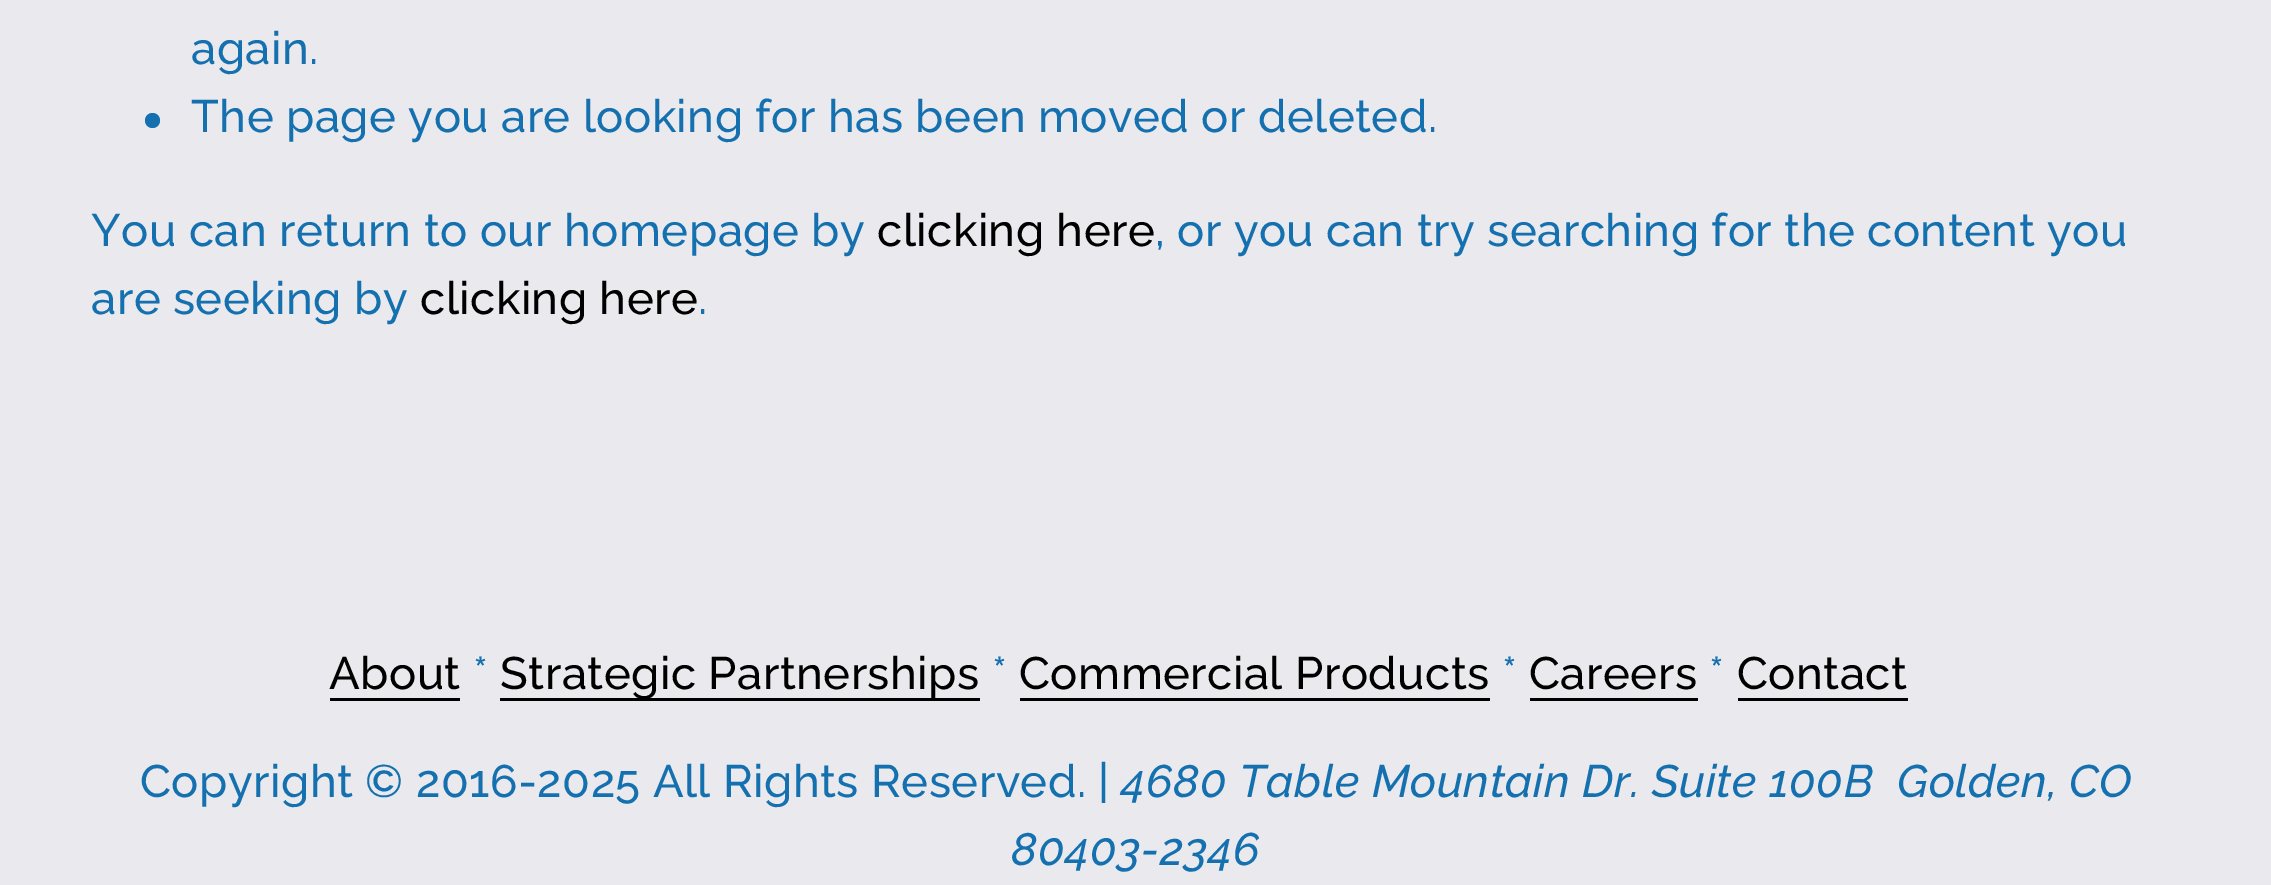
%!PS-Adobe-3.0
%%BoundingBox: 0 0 2271 885
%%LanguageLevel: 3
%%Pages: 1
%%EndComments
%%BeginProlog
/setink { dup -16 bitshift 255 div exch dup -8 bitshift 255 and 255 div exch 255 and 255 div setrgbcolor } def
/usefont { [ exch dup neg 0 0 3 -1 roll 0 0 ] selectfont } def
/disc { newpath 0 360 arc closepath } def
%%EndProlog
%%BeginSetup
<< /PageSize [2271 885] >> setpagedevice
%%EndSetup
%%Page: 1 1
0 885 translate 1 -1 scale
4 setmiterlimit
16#EAEAEE setink
0 0 2271 885 rectfill
/Raleway-Medium 45.45 usefont
16#1470AF setink
191 64 moveto 0.45 0 (again.) ashow
152.5 120.5 7.5 disc fill
191 132 moveto 0.45 0 (The page you are looking for has been moved or deleted.) ashow
91 246 moveto 0.45 0 (You can return to our homepage by) ashow
16#000000 setink
877 246 moveto 0.45 0 (clicking here) ashow
16#1470AF setink
1155 246 moveto 0.45 0 (, or you can try searching for the) ashow
1867 246 moveto 0.45 0 (content you) ashow
91 314 moveto 0.45 0 (are seeking by) ashow
16#000000 setink
420 314 moveto 0.45 0 (clicking here) ashow
16#1470AF setink
698 314 moveto 0.45 0 (.) ashow
16#000000 setink
329 689 moveto 0.45 0 (About) ashow
330 698 130 3 rectfill
16#1470AF setink
473 689 moveto 0.45 0 (*) ashow
16#000000 setink
500 698 480 3 rectfill
500 689 moveto 0.45 0 (Strategic Partnerships) ashow
16#1470AF setink
992 689 moveto 0.45 0 (*) ashow
16#000000 setink
1019 689 moveto 0.45 0 (Commercial Products) ashow
1020 698 470 3 rectfill
16#1470AF setink
1502 689 moveto 0.45 0 (*) ashow
16#000000 setink
1529 689 moveto 0.45 0 (Careers) ashow
1530 698 168 3 rectfill
16#1470AF setink
1709 689 moveto 0.45 0 (*) ashow
16#000000 setink
1737 689 moveto 0.45 0 (Contact) ashow
1738 698 170 3 rectfill
16#1470AF setink
140 797 moveto 0.45 0 (Copyright © 2016-2025 All Rights Reserved. |) ashow
/Raleway-MediumItalic 45.45 usefont
1121 797 moveto 0.45 0 (4680 Table Mountain Dr. Suite 100B  Golden, CO) ashow
1011 865 moveto 0.45 0 (80403-2346) ashow
showpage
%%EOF
